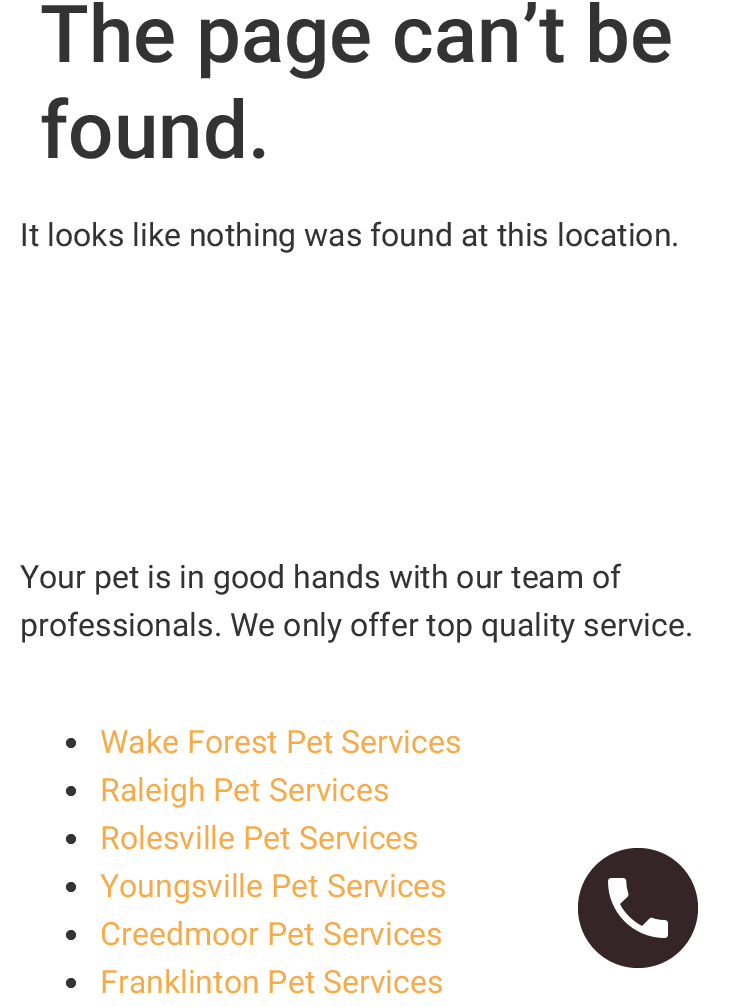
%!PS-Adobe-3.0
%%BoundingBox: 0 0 737 1007
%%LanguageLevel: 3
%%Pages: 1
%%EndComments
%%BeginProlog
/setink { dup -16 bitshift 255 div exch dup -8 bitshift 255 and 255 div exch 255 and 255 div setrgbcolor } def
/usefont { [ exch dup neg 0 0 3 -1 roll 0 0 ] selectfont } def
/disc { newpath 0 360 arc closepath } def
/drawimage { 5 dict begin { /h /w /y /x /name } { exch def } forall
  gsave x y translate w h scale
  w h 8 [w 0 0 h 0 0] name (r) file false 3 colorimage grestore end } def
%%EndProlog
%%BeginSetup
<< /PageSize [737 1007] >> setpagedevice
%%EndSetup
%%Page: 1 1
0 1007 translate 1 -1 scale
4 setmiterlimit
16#FFFFFF setink
0 0 737 1007 rectfill
/Roboto-Medium 80 usefont
16#333333 setink
40 62 moveto (The page can’t be) show
40 158 moveto (found.) show
/Roboto-Regular 32 usefont
[
    [(It looks like nothing was found at this location.) 20 246]
    [(Your pet is in good hands with our team of) 20 588]
    [(professionals. We only offer top quality service.) 20 636]
] { aload pop moveto show } forall
71 743 5 disc fill
16#F6AB4A setink
100 753 moveto (Wake Forest Pet Services) show
16#333333 setink
71 791 5 disc fill
16#F6AB4A setink
100 801 moveto (Raleigh Pet Services) show
16#333333 setink
71 839 5 disc fill
16#F6AB4A setink
100 849 moveto (Rolesville Pet Services) show
16#333333 setink
71 887 5 disc fill
16#F6AB4A setink
100 897 moveto (Youngsville Pet Services) show
16#333333 setink
71 935 5 disc fill
16#F6AB4A setink
100 945 moveto (Creedmoor Pet Services) show
16#333333 setink
71 983 5 disc fill
16#F6AB4A setink
100 993 moveto (Franklinton Pet Services) show
16#362526 setink
638 908 60 disc fill
(img1.raw) 608 878 60 60 drawimage
showpage
%%EOF
